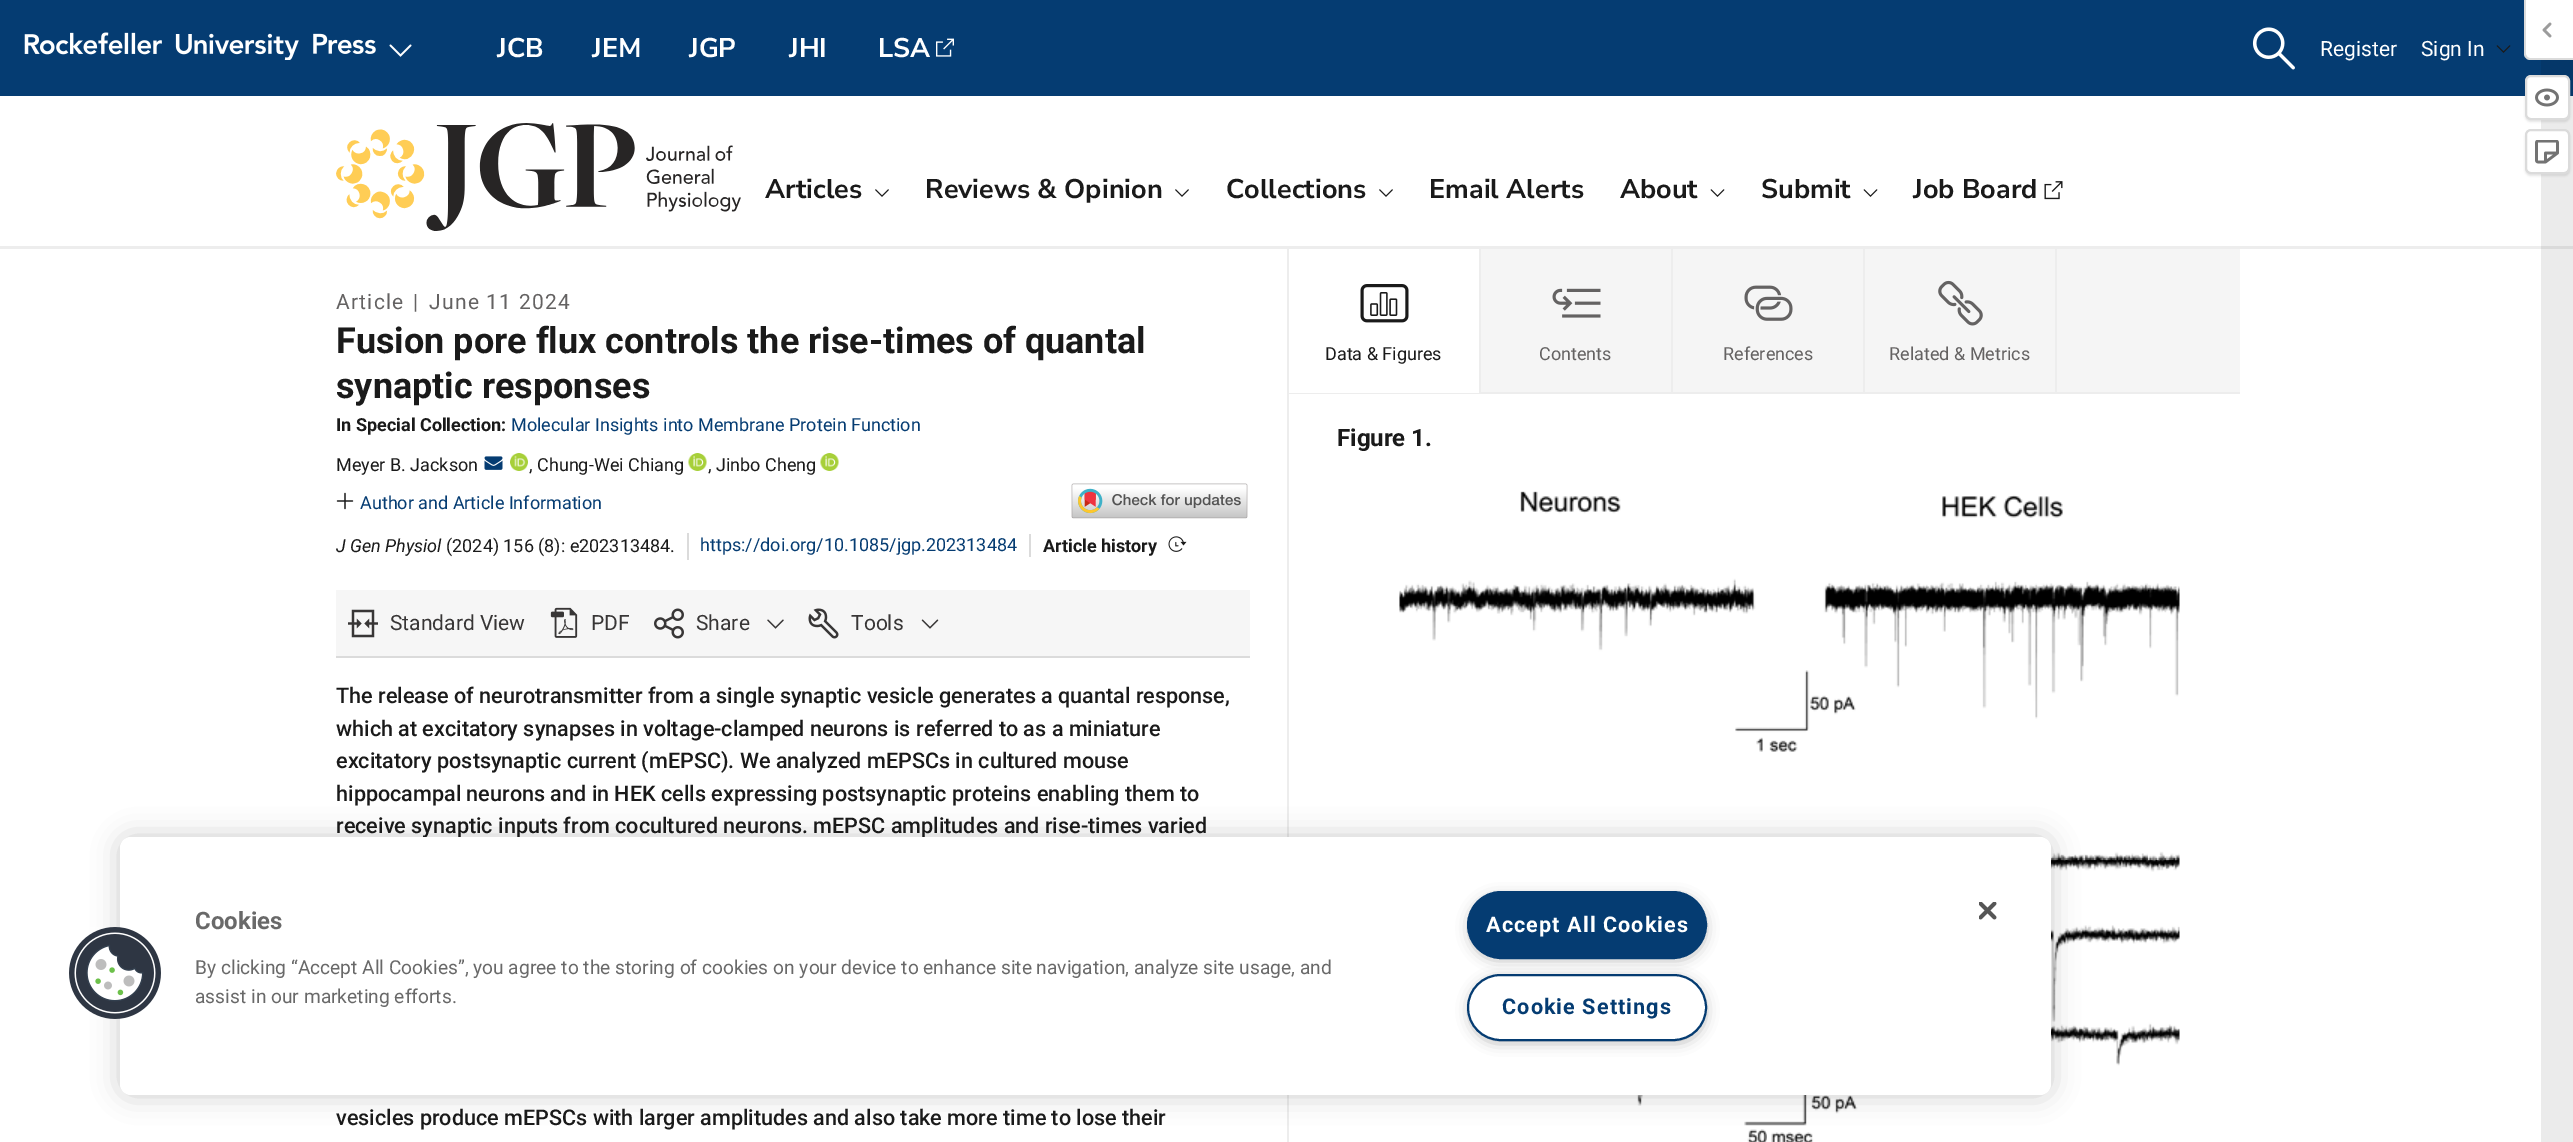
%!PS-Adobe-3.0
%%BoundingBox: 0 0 2573 1142
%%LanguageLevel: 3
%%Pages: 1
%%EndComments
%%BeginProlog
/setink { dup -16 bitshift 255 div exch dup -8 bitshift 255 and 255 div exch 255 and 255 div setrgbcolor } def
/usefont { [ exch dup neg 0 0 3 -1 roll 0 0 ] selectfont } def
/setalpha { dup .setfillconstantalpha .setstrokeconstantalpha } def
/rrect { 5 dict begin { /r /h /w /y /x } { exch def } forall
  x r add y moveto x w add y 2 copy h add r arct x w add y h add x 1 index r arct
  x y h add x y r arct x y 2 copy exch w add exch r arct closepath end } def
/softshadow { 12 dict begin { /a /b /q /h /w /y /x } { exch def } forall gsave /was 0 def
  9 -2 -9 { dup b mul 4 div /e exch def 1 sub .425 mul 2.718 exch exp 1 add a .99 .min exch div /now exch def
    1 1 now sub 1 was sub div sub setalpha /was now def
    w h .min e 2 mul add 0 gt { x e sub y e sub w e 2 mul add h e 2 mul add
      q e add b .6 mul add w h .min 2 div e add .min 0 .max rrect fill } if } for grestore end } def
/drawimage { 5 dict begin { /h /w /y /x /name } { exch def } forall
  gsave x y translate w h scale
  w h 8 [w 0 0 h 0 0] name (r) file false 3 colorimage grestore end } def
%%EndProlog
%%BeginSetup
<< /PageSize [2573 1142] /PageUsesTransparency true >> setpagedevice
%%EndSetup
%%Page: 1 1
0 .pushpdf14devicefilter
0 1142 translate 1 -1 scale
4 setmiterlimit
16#FFFFFF setink
0 0 2573 1142 rectfill
[
    [2541 96 32 1046 16#EBEBEB]
    [0 0 2541 96 16#053C72]
    [2541 60 32 36 16#053769]
] { aload pop setink rectfill } forall
(img1.raw) 24 32 352 28 drawimage
(img2.raw) 389 44 23 13 drawimage
/NunitoSans-Bold 27 usefont
16#FFFFFF setink
[
    [(JCB) 497 57]
    [(JEM) 592 57]
    [(JGP) 689 57]
    [(JHI) 789 57]
    [(LSA) 878 57]
] { aload pop moveto show } forall
(img3.raw) 936 38 18 19 drawimage
(img4.raw) 2252 27 43 43 drawimage
/Roboto-Regular 21 usefont
2320 56 moveto (Register) show
2421 56 moveto (Sign In) show
(img5.raw) 2496 45 15 8 drawimage
16#EDEDED setink
0 246 2541 3 rectfill
16#DADADA setink
2541 246 32 3 rectfill
(img6.raw) 336 123 405 108 drawimage
/NunitoSans-Bold 27 usefont
16#1A1A1A setink
765 198 moveto (Articles) show
(img7.raw) 875 189 14 8 drawimage
925 198 moveto (Reviews & Opinion) show
(img7.raw) 1175 189 14 8 drawimage
1226 198 moveto (Collections) show
(img7.raw) 1379 189 14 8 drawimage
1429 198 moveto (Email Alerts) show
1620 198 moveto (About) show
(img8.raw) 1710 189 15 8 drawimage
1761 198 moveto (Submit) show
(img8.raw) 1863 189 15 8 drawimage
1913 198 moveto (Job Board) show
(img9.raw) 2044 181 19 19 drawimage
16#FFFFFF setink
2526 0 moveto 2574 0 lineto 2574 59 lineto 2531 59 lineto 2528 59 2526 57 2526 54 curveto closepath fill
16#DBDBDB setink
2524 0 moveto 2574 0 lineto 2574 60 lineto 2530 60 lineto 2527 60 2524 57 2524 54 curveto closepath 2526 0 moveto 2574 0 lineto 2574 58 lineto 2530 58 lineto 2528 58 2526 56 2526 54 curveto closepath eofill
(img10.raw) 2542 22 10 16 drawimage
16#000000 setink
2525 77 45 45 6 1 0.1 softshadow
16#FFFFFF setink
2526 76 43 43 5 rrect gsave fill grestore
16#DBDBDB setink
2 setlinewidth
stroke
(img11.raw) 2535 88 24 19 drawimage
16#000000 setink
2525 131 45 45 6 1 0.1 softshadow
16#FFFFFF setink
2526 130 43 43 5 rrect gsave fill grestore
16#DBDBDB setink
stroke
(img12.raw) 2535 140 24 24 drawimage
/Roboto-Regular 21 usefont
16#646262 setink
336 309 moveto 1.25 0 (Article) ashow
413 309 moveto 1.25 0 (|) ashow
429 309 moveto 1.25 0 (June 11 2024) ashow
/Roboto-Bold 36 usefont
16#1A1A1A setink
336 353 moveto (Fusion pore flux controls the rise-times of quantal) show
336 398 moveto (synaptic responses) show
/Roboto-Bold 18 usefont
336 431 moveto (In Special Collection:) show
/Roboto-Regular 18 usefont
16#053C72 setink
511 431 moveto (Molecular Insights into Membrane Protein Function) show
16#1A1A1A setink
336 471 moveto (Meyer B. Jackson) show
(img13.raw) 484 456 19 14 drawimage
(img14.raw) 510 453 18 18 drawimage
529 471 moveto (, Chung-Wei Chiang) show
(img15.raw) 688 453 19 18 drawimage
708 471 moveto (, Jinbo Cheng) show
(img15.raw) 820 453 19 18 drawimage
(img16.raw) 336 492 18 18 drawimage
16#053C72 setink
360 509 moveto (Author and Article Information) show
(img17.raw) 1071 483 177 36 drawimage
16#DBDBDB setink
687 533 2 27 rectfill
/Roboto-Italic 18 usefont
16#1A1A1A setink
336 552 moveto (J Gen Physiol) show
/Roboto-Regular 18 usefont
446 552 moveto (\(2024\) 156 \(8\): e202313484.) show
16#DBDBDB setink
1029 534 2 23 rectfill
16#053C72 setink
700 551 moveto (https://doi.org/10.1085/jgp.202313484) show
/Roboto-Bold 18 usefont
16#1A1A1A setink
1043 552 moveto (Article history) show
(img18.raw) 1168 536 19 16 drawimage
16#F6F6F6 setink
336 590 914 66 rectfill
16#DBDBDB setink
336 656 914 2 rectfill
(img19.raw) 348 609 30 29 drawimage
/Roboto-Regular 21 usefont
16#383636 setink
390 630 moveto (Standard View) show
(img20.raw) 550 607 28 31 drawimage
591 630 moveto (PDF) show
(img21.raw) 654 608 30 31 drawimage
696 630 moveto (Share) show
(img22.raw) 767 619 17 10 drawimage
(img23.raw) 808 608 31 31 drawimage
851 630 moveto (Tools) show
(img24.raw) 921 619 18 10 drawimage
/Roboto-Medium 21.6 usefont
16#1A1A1A setink
[
    [(The release of neurotransmitter from a single synaptic vesicle generates a quantal response,) 336 703]
    [(which at excitatory synapses in voltage-clamped neurons is referred to as a miniature) 336 736]
    [(excitatory postsynaptic current \(mEPSC\). We analyzed mEPSCs in cultured mouse) 336 768]
    [(hippocampal neurons and in HEK cells expressing postsynaptic proteins enabling them to) 336 801]
    [(receive synaptic inputs from cocultured neurons. mEPSC amplitudes and rise-times varied) 336 833]
    [(vesicles produce mEPSCs with larger amplitudes and also take more time to lose their) 336 1125]
] { aload pop moveto show } forall
[
    [1287 249 2 893 16#EDEDED]
    [1481 249 759 143 16#F5F5F5]
    [1289 392 951 2 16#EDEDED]
    [1289 392 190 1 16#FFFFFF]
    [1479 249 2 144 16#EDEDED]
] { aload pop setink rectfill } forall
(img25.raw) 1360 284 49 39 drawimage
/Roboto-Regular 18 usefont
16#1A1A1A setink
1325 360 moveto (Data & Figures) show
16#EDEDED setink
1671 249 2 144 rectfill
(img26.raw) 1552 288 49 30 drawimage
16#646262 setink
1539 360 moveto (Contents) show
16#EDEDED setink
1863 249 2 144 rectfill
(img27.raw) 1744 285 49 36 drawimage
16#646262 setink
1723 360 moveto (References) show
16#EDEDED setink
2055 249 2 144 rectfill
(img28.raw) 1938 280 45 46 drawimage
16#646262 setink
1889 360 moveto (Related & Metrics) show
/Roboto-Bold 24 usefont
16#1A1A1A setink
1337 446 moveto (Figure 1.) show
(img29.raw) 1399 491 781 651 drawimage
16#000000 setink
120 837 1931 258 11 13.5 0.2 softshadow
16#FFFFFF setink
120 837 1931 258 11 rrect fill
(img30.raw) 69 927 92 92 drawimage
16#696969 setink
195 929 moveto (Cookies) show
/Roboto-Regular 19.2 usefont
195 974 moveto (By clicking “Accept All Cookies”, you agree to the storing of cookies on your device to enhance site navigation, analyze site usage, and) show
195 1003 moveto (assist in our marketing efforts.) show
16#999999 setink
1472 899 231 58 29 7.5 1 softshadow
16#053C72 setink
1468 892 238 66 33 rrect gsave fill grestore
stroke
/Roboto-Bold 21.6 usefont
16#FFFFFF setink
1486 932 moveto 1.1 0 (Accept All Cookies) ashow
16#999999 setink
1472 981 231 59 29.5 7.5 1 softshadow
16#FFFFFF setink
1468 975 238 65 32.5 rrect gsave fill grestore
16#053C72 setink
stroke
1502 1014 moveto 1.1 0 (Cookie Settings) ashow
(img31.raw) 1979 902 18 18 drawimage
.poppdf14devicefilter showpage
%%EOF
